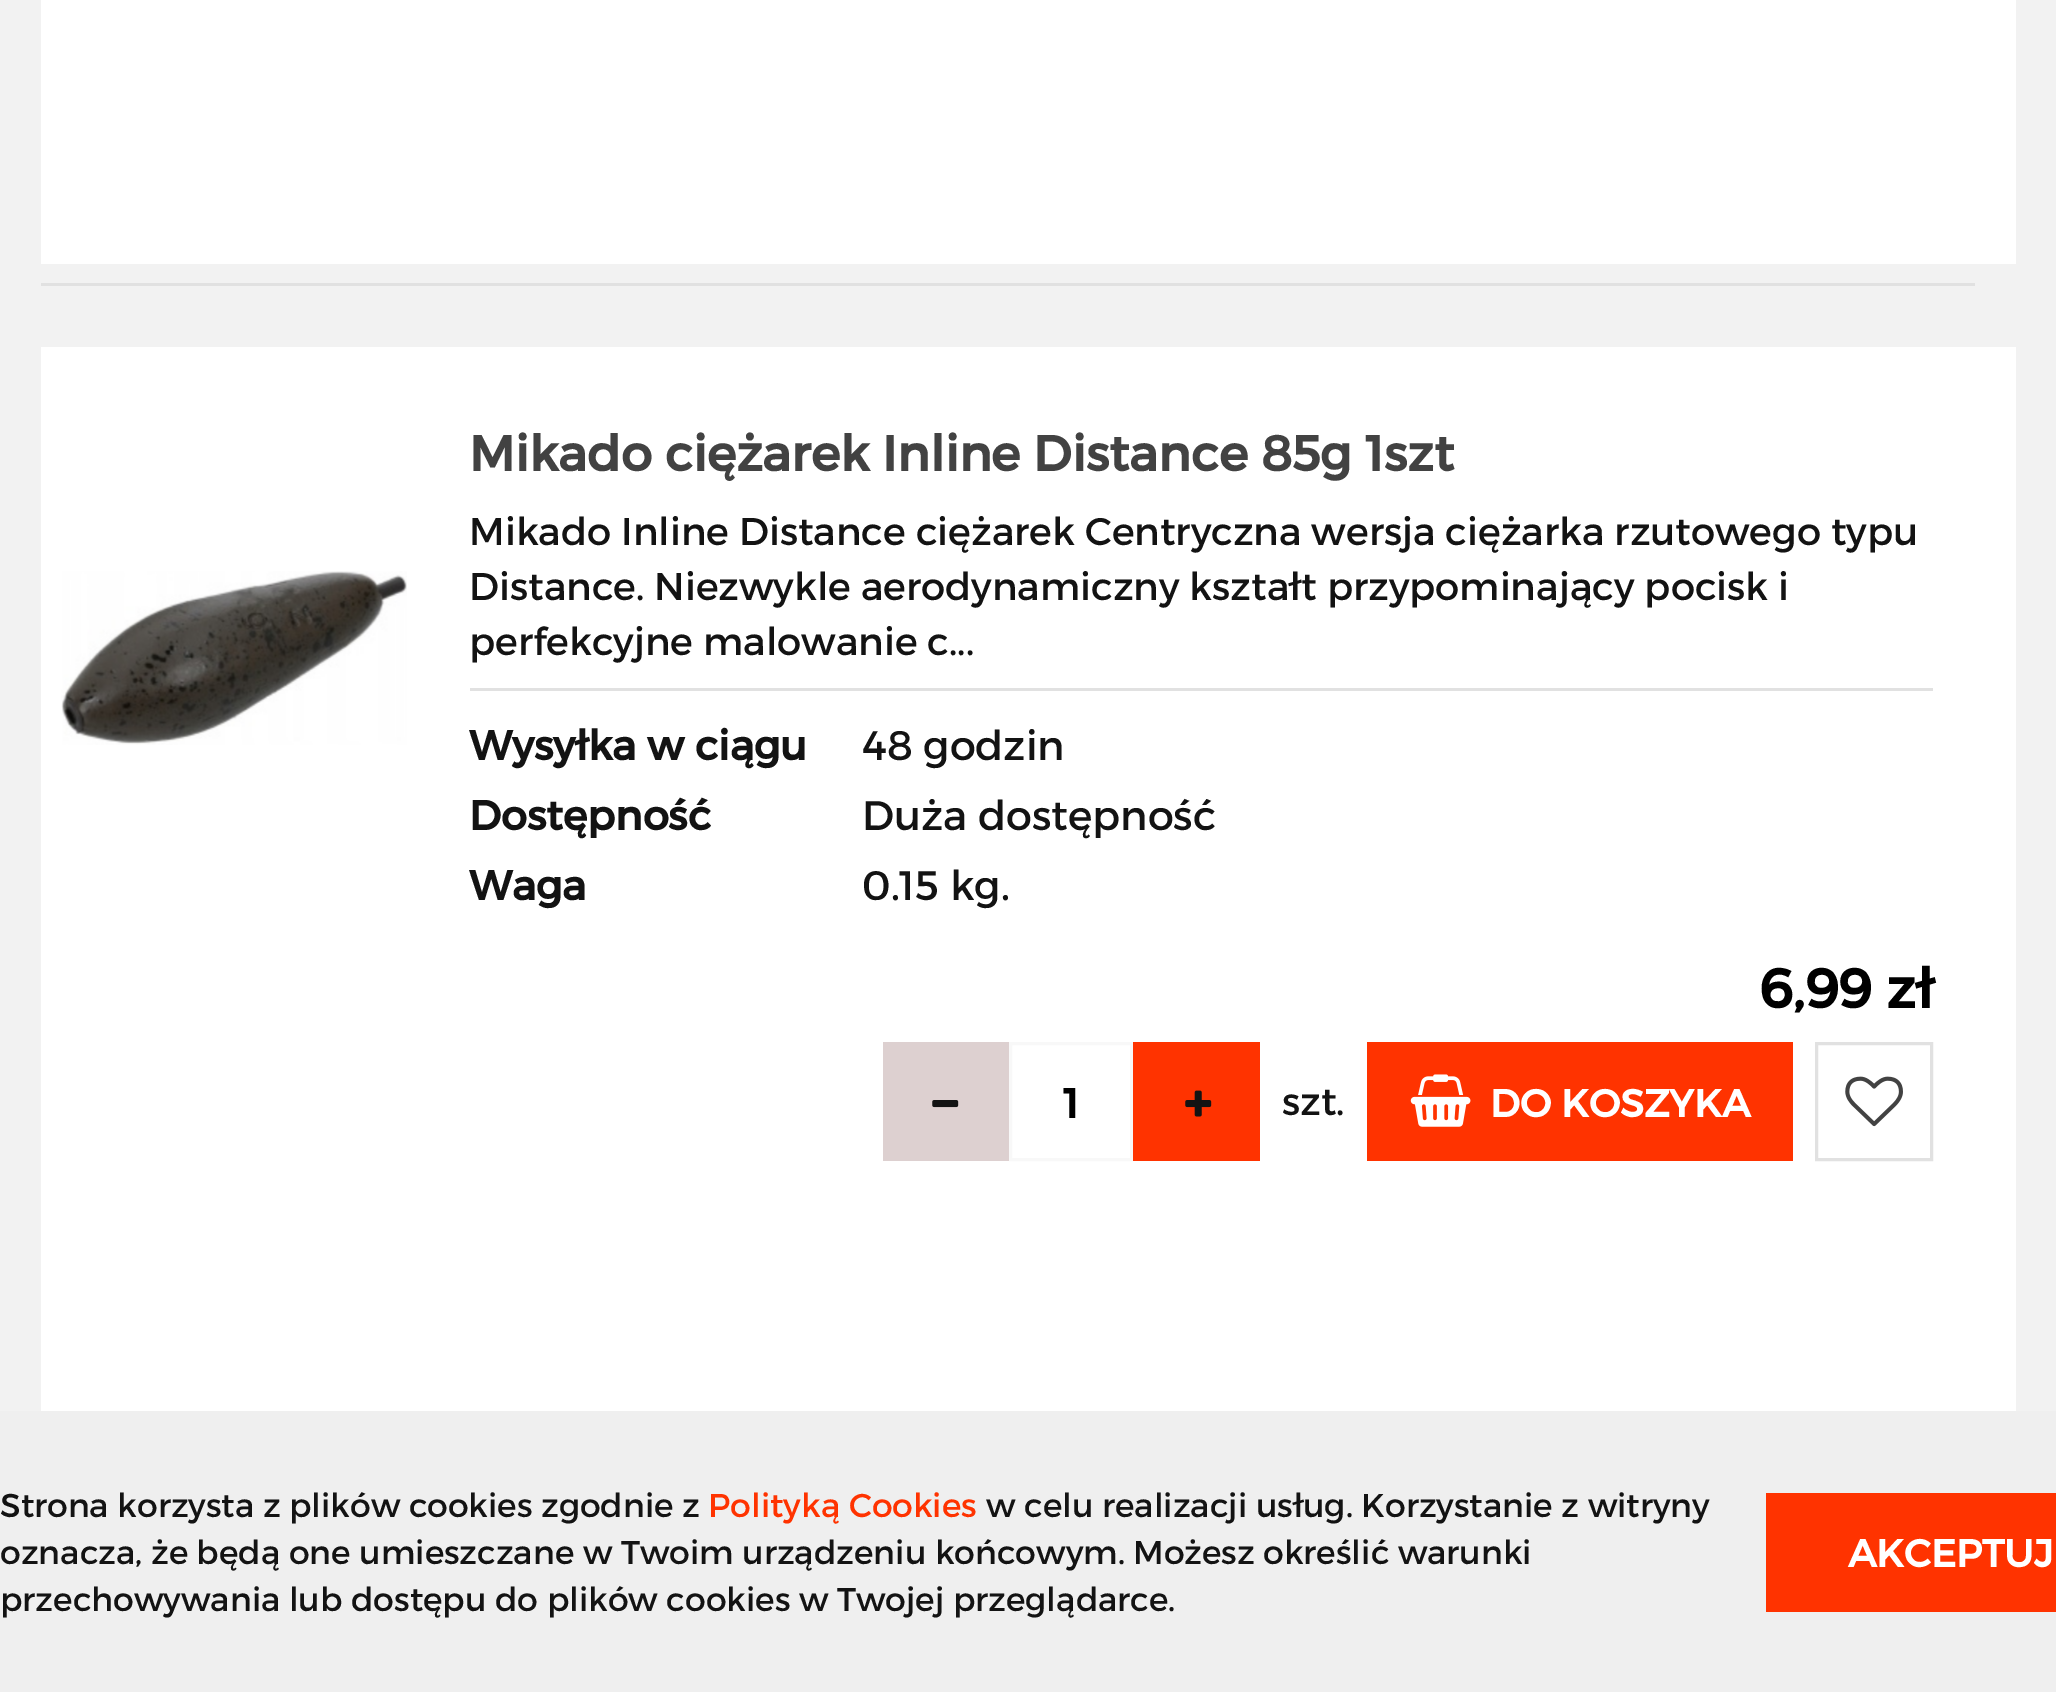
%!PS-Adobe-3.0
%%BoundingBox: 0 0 2056 1692
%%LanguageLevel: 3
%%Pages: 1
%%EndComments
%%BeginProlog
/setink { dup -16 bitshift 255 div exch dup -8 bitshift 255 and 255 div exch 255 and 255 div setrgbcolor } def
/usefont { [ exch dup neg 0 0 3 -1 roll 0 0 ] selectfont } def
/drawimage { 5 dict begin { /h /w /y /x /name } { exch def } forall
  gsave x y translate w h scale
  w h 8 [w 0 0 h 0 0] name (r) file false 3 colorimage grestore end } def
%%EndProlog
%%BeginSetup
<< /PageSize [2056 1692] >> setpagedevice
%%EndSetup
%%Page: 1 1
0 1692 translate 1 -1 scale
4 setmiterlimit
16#F2F2F2 setink
0 0 2056 1692 rectfill
[
    [41 0 1975 264 16#FFFFFF]
    [41 283 1934 3 16#E1E1E1]
    [41 347 1975 1064 16#FFFFFF]
] { aload pop setink rectfill } forall
(img1.raw) 61 571 346 174 drawimage
16#E1E1E1 setink
470 688 1463 3 rectfill
/Montserrat-Bold 49.5 usefont
16#424242 setink
469 471 moveto (Mikado ciężarek Inline Distance 85g 1szt) show
/Montserrat-Regular 38.5 usefont
16#131313 setink
[
    [(Mikado Inline Distance ciężarek Centryczna wersja ciężarka rzutowego typu) 469 545]
    [(Distance. Niezwykle aerodynamiczny kształt przypominający pocisk i) 469 600]
    [(perfekcyjne malowanie c...) 469 655]
] { aload pop moveto show } forall
/Montserrat-Bold 41.25 usefont
469 760 moveto (Wysyłka w ciągu) show
/Montserrat-Regular 41.25 usefont
862 760 moveto (48 godzin) show
/Montserrat-Bold 41.25 usefont
469 830 moveto (Dostępność) show
/Montserrat-Regular 41.25 usefont
862 830 moveto (Duża dostępność) show
/Montserrat-Bold 41.25 usefont
469 900 moveto (Waga) show
/Montserrat-Regular 41.25 usefont
862 900 moveto (0.15 kg.) show
/Montserrat-Bold 55 usefont
16#000000 setink
1759 1008 moveto (6,99 zł) show
16#DDD0D0 setink
883 1042 126 119 rectfill
(img2.raw) 932 1100 27 8 drawimage
16#F8F8F8 setink
3 setlinewidth
1010.5 1043.5 121 116 rectstroke
/Montserrat-Bold 41.25 usefont
16#000000 setink
1063 1118 moveto (1) show
16#FF3300 setink
1133 1042 127 119 rectfill
(img3.raw) 1185 1090 27 27 drawimage
/Montserrat-Regular 38.5 usefont
16#131313 setink
1282 1115 moveto (szt.) show
16#FF3300 setink
1367 1042 426 119 rectfill
(img4.raw) 1410 1074 61 53 drawimage
/Montserrat-Bold 38.5 usefont
16#FFFFFF setink
1490 1117 moveto (DO KOSZYKA) show
16#E1E1E1 setink
1816.5 1043.5 115 116 rectstroke
(img5.raw) 1845 1076 58 51 drawimage
16#EFEFEF setink
0 1411 2056 281 rectfill
/Montserrat-Regular 33 usefont
16#131313 setink
0 1517 moveto (Strona korzysta z plików cookies zgodnie z) show
16#FF3300 setink
708 1517 moveto (Polityką Cookies) show
16#131313 setink
[
    [(w celu realizacji usług. Korzystanie z witryny) 986 1517]
    [(oznacza, że będą one umieszczane w Twoim urządzeniu końcowym. Możesz określić warunki) 0 1564]
    [(przechowywania lub dostępu do plików cookies w Twojej przeglądarce.) 0 1611]
] { aload pop moveto show } forall
16#FF3300 setink
1766 1493 290 119 rectfill
/Montserrat-Bold 38.5 usefont
16#FFFFFF setink
1848 1567 moveto (AKCEPTUJ) show
showpage
%%EOF
